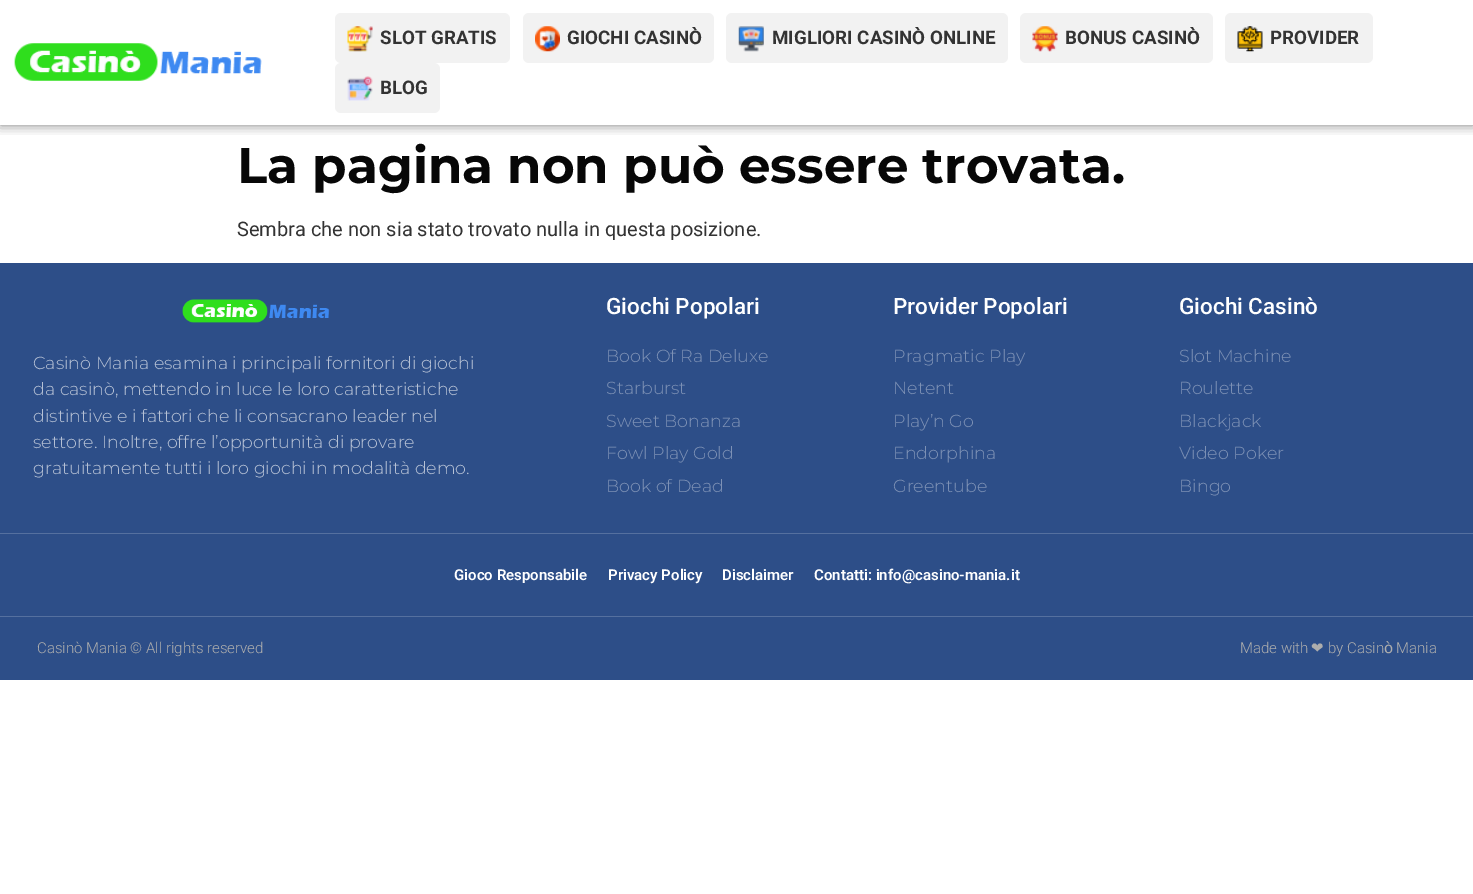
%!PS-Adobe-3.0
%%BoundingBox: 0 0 1473 894
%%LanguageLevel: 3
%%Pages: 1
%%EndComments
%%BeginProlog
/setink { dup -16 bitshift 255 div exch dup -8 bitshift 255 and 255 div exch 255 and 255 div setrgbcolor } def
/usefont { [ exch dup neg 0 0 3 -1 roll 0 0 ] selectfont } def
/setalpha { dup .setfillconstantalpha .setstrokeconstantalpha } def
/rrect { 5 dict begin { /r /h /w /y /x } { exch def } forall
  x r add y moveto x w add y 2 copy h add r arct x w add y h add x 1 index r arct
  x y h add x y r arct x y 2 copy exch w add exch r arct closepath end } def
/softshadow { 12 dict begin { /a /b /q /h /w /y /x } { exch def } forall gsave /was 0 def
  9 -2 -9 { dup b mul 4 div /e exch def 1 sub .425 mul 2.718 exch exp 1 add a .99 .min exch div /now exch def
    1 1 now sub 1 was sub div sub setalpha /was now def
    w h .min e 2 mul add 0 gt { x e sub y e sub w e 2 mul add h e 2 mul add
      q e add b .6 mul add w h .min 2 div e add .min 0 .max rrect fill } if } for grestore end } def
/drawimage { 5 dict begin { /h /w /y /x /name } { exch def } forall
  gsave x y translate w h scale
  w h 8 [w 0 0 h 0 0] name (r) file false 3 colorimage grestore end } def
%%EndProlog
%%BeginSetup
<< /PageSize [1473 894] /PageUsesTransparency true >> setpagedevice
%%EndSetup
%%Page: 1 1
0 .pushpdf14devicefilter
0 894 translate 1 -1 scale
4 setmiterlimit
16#FFFFFF setink
0 0 1473 894 rectfill
gsave
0 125 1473 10 rectclip
16#000000 setink
0 0 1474 125 0 6 0.5 softshadow
grestore
(img1.raw) 14 43 248 38 drawimage
16#F2F2F2 setink
335 13 175 50 6 rrect fill
(img2.raw) 347 26 26 26 drawimage
/Roboto-Bold 18.75 usefont
16#333333 setink
380 44 moveto (SLOT GRATIS) show
16#F2F2F2 setink
523 13 191 50 6 rrect fill
(img3.raw) 535 26 25 26 drawimage
16#333333 setink
567 44 moveto (GIOCHI CASINÒ) show
16#F2F2F2 setink
726 13 282 50 6 rrect fill
(img4.raw) 738 26 26 26 drawimage
16#333333 setink
772 44 moveto (MIGLIORI CASINÒ ONLINE) show
16#F2F2F2 setink
1020 13 193 50 6 rrect fill
(img5.raw) 1032 26 26 26 drawimage
16#333333 setink
1065 44 moveto (BONUS CASINÒ) show
16#F2F2F2 setink
1225 13 148 50 6 rrect fill
(img6.raw) 1237 26 26 26 drawimage
16#333333 setink
1270 44 moveto (PROVIDER) show
16#F2F2F2 setink
335 63 105 50 6 rrect fill
(img7.raw) 347 76 26 25 drawimage
16#333333 setink
380 94 moveto (BLOG) show
/Montserrat-Bold 50 usefont
16#070707 setink
237 183 moveto (La pagina non può essere trovata.) show
/Roboto-Regular 20 usefont
16#333333 setink
237 236 moveto (Sembra che non sia stato trovato nulla in questa posizione.) show
16#2D4E88 setink
0 263 1473 270 rectfill
(img8.raw) 182 299 148 24 drawimage
/Montserrat-Light 17.5 usefont
16#B6C1D5 setink
[
    [(Casinò Mania esamina i principali fornitori di giochi) 33 369]
    [(da casinò, mettendo in luce le loro caratteristiche) 33 395]
    [(distintive e i fattori che li consacrano leader nel) 33 422]
    [(settore. Inoltre, offre l’opportunità di provare) 33 448]
    [(gratuitamente tutti i loro giochi in modalità demo.) 33 474]
] { aload pop moveto show } forall
/Roboto-Medium 22.5 usefont
16#FFFFFF setink
606 314 moveto (Giochi Popolari) show
/Montserrat-Light 17.5 usefont
16#7D91B5 setink
[
    [(Book Of Ra Deluxe) 606 362]
    [(Starburst) 606 394]
    [(Sweet Bonanza) 606 427]
    [(Fowl Play Gold) 606 459]
    [(Book of Dead) 606 492]
] { aload pop moveto show } forall
/Roboto-Medium 22.5 usefont
16#FFFFFF setink
893 314 moveto (Provider Popolari) show
/Montserrat-Light 17.5 usefont
16#7D91B5 setink
[
    [(Pragmatic Play) 893 362]
    [(Netent) 893 394]
    [(Play’n Go) 893 427]
    [(Endorphina) 893 459]
    [(Greentube) 893 492]
] { aload pop moveto show } forall
/Roboto-Medium 22.5 usefont
16#FFFFFF setink
1179 314 moveto (Giochi Casinò) show
/Montserrat-Light 17.5 usefont
16#7D91B5 setink
[
    [(Slot Machine) 1179 362]
    [(Roulette) 1179 394]
    [(Blackjack) 1179 427]
    [(Video Poker) 1179 459]
    [(Bingo) 1179 492]
] { aload pop moveto show } forall
16#2D4E88 setink
0 534 1473 82 rectfill
16#55709F setink
0 533 1473 1 rectfill
/Roboto-SemiBold 15 usefont
16#FFFFFF setink
[
    [(Gioco Responsabile) 454 580]
    [(Privacy Policy) 608 580]
    [(Disclaimer) 722 580]
    [(Contatti: info@casino-mania.it) 814 580]
] { aload pop moveto show } forall
16#2D4E88 setink
0 617 1473 63 rectfill
16#55709F setink
0 616 1473 1 rectfill
/Roboto-Light 15 usefont
16#ADADAD setink
37 653 moveto (Casinò Mania © All rights reserved) show
1240 653 moveto (Made with) show
/DejaVuSans-Regular 15 usefont
1311 653 moveto (❤) show
/Roboto-Light 15 usefont
1328 653 moveto (by Casin) show
/DejaVuSans-Regular 15 usefont
1384 653 moveto (ò) show
/Roboto-Light 15 usefont
1396 653 moveto (Mania) show
.poppdf14devicefilter showpage
%%EOF
